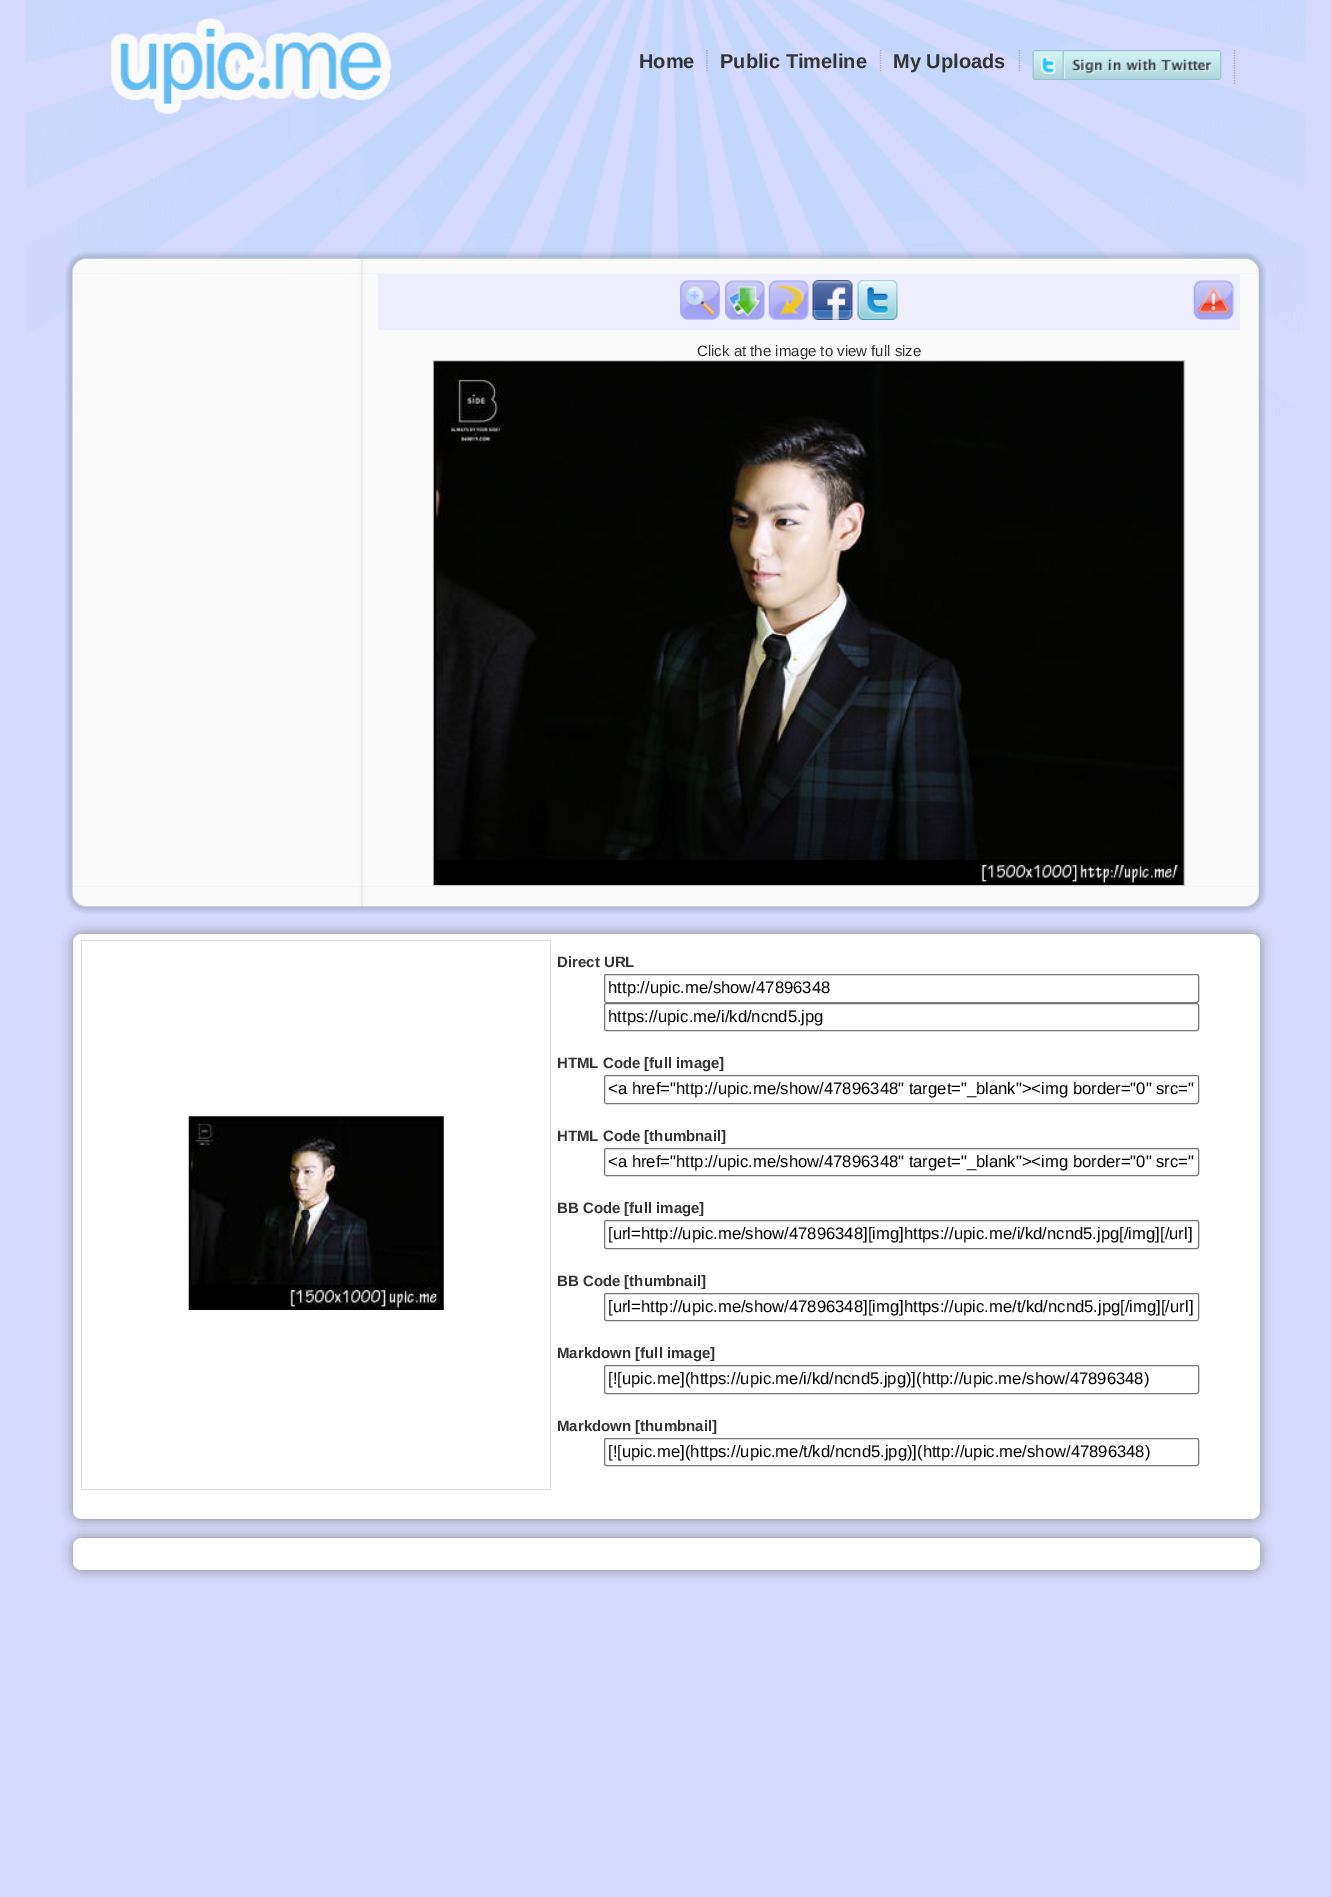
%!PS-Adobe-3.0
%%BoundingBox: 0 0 1331 1897
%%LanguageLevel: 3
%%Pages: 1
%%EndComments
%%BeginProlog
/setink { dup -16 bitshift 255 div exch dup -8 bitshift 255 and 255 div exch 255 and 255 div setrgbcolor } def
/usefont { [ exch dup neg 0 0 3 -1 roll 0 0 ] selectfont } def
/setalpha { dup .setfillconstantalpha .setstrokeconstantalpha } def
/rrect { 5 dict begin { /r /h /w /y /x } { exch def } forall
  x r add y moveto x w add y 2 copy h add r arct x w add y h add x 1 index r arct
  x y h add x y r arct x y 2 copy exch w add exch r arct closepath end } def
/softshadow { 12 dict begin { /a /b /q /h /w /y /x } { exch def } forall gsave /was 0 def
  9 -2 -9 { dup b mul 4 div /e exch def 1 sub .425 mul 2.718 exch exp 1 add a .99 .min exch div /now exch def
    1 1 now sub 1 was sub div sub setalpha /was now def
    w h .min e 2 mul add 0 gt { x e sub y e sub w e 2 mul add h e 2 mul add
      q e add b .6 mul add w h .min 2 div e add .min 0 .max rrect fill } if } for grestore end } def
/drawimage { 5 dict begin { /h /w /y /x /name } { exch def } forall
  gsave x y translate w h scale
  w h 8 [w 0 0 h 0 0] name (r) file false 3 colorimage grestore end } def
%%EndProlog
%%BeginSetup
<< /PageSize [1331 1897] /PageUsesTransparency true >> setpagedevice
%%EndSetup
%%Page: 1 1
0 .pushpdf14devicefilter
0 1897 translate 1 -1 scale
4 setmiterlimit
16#D5D9FD setink
0 0 1331 1897 rectfill
(img1.raw) 26 0 1280 432 drawimage
(img2.raw) 110 18 282 96 drawimage
16#AAAAAA setink
1.2 setlinewidth
[1.25 1.25] 0 setdash
707 50 moveto 707 72.5 lineto stroke
/LiberationSans-Bold 20 usefont
16#333333 setink
639 68 moveto (Home) show
16#AAAAAA setink
880.5 50 moveto 880.5 72.5 lineto stroke
16#333333 setink
720 68 moveto (Public Timeline) show
16#AAAAAA setink
1019.5 50 moveto 1019.5 72.5 lineto stroke
16#333333 setink
893 68 moveto (My Uploads) show
16#AAAAAA setink
1234.5 50 moveto 1234.5 85 lineto stroke
(img3.raw) 1032 50 190 30 drawimage
(img4.raw) 65 251 1201 23 drawimage
(img5.raw) 65 273 1201 614 drawimage
16#EEEEFF setink
378 274 862 56 rectfill
(img6.raw) 680 280 40 40 drawimage
(img7.raw) 725 280 40 40 drawimage
(img8.raw) 768 280 41 40 drawimage
(img9.raw) 812 280 41 40 drawimage
(img10.raw) 857 280 41 40 drawimage
(img11.raw) 1193 280 41 40 drawimage
/LiberationSans-Regular 15 usefont
16#333333 setink
697 356 moveto (Click at the image to view full size) show
16#CCCCCC setink
1 setlinewidth
[] 0 setdash
433.5 360.5 751 525 rectstroke
(img12.raw) 433 361 751 524 drawimage
(img13.raw) 65 886 1201 28 drawimage
16#888888 setink
73 934 1187 585 9 6 1 softshadow
16#FFFFFF setink
73 934 1187 585 9 rrect fill
[
    [81 940 470 1 16#DDDDDD]
    [550 940 1 550 16#DDDDDD]
    [81 1489 470 1 16#DDDDDD]
    [81 940 1 550 16#DDDDDD]
] { aload pop setink rectfill } forall
(img14.raw) 188 1116 256 194 drawimage
/LiberationSans-Bold 15 usefont
16#333333 setink
557 967 moveto (Direct URL) show
16#767676 setink
604.5 974.5 594 28 2 rrect stroke
/LiberationSans-Regular 16.65 usefont
16#000000 setink
608 993 moveto (http://upic.me/show/47896348) show
16#767676 setink
604.5 1003.5 594 27 2 rrect stroke
16#000000 setink
608 1022 moveto (https://upic.me/i/kd/ncnd5.jpg) show
/LiberationSans-Bold 15 usefont
16#333333 setink
557 1068 moveto (HTML Code [full image]) show
16#767676 setink
604.5 1075.5 594 28 2 rrect stroke
/LiberationSans-Regular 16.65 usefont
16#000000 setink
608 1094 moveto (<a href="http://upic.me/show/47896348" target="_blank"><img border="0" src=") show
/LiberationSans-Bold 15 usefont
16#333333 setink
557 1141 moveto (HTML Code [thumbnail]) show
16#767676 setink
604.5 1148.5 594 27 2 rrect stroke
/LiberationSans-Regular 16.65 usefont
16#000000 setink
608 1167 moveto (<a href="http://upic.me/show/47896348" target="_blank"><img border="0" src=") show
/LiberationSans-Bold 15 usefont
16#333333 setink
557 1213 moveto (BB Code [full image]) show
16#767676 setink
604.5 1220.5 594 28 2 rrect stroke
/LiberationSans-Regular 16.65 usefont
16#000000 setink
608 1239 moveto ([url=http://upic.me/show/47896348][img]https://upic.me/i/kd/ncnd5.jpg[/img][/url]) show
/LiberationSans-Bold 15 usefont
16#333333 setink
557 1286 moveto (BB Code [thumbnail]) show
16#767676 setink
604.5 1293.5 594 27 2 rrect stroke
/LiberationSans-Regular 16.65 usefont
16#000000 setink
608 1312 moveto ([url=http://upic.me/show/47896348][img]https://upic.me/t/kd/ncnd5.jpg[/img][/url]) show
/LiberationSans-Bold 15 usefont
16#333333 setink
557 1358 moveto (Markdown [full image]) show
16#767676 setink
604.5 1365.5 594 28 2 rrect stroke
/LiberationSans-Regular 16.65 usefont
16#000000 setink
608 1384 moveto ([![upic.me]\(https://upic.me/i/kd/ncnd5.jpg\)]\(http://upic.me/show/47896348\)) show
/LiberationSans-Bold 15 usefont
16#333333 setink
557 1431 moveto (Markdown [thumbnail]) show
16#767676 setink
604.5 1438.5 594 27 2 rrect stroke
/LiberationSans-Regular 16.65 usefont
16#000000 setink
608 1457 moveto ([![upic.me]\(https://upic.me/t/kd/ncnd5.jpg\)]\(http://upic.me/show/47896348\)) show
16#888888 setink
73 1538 1187 32 9 6 1 softshadow
16#FFFFFF setink
73 1538 1187 32 9 rrect fill
.poppdf14devicefilter showpage
%%EOF
